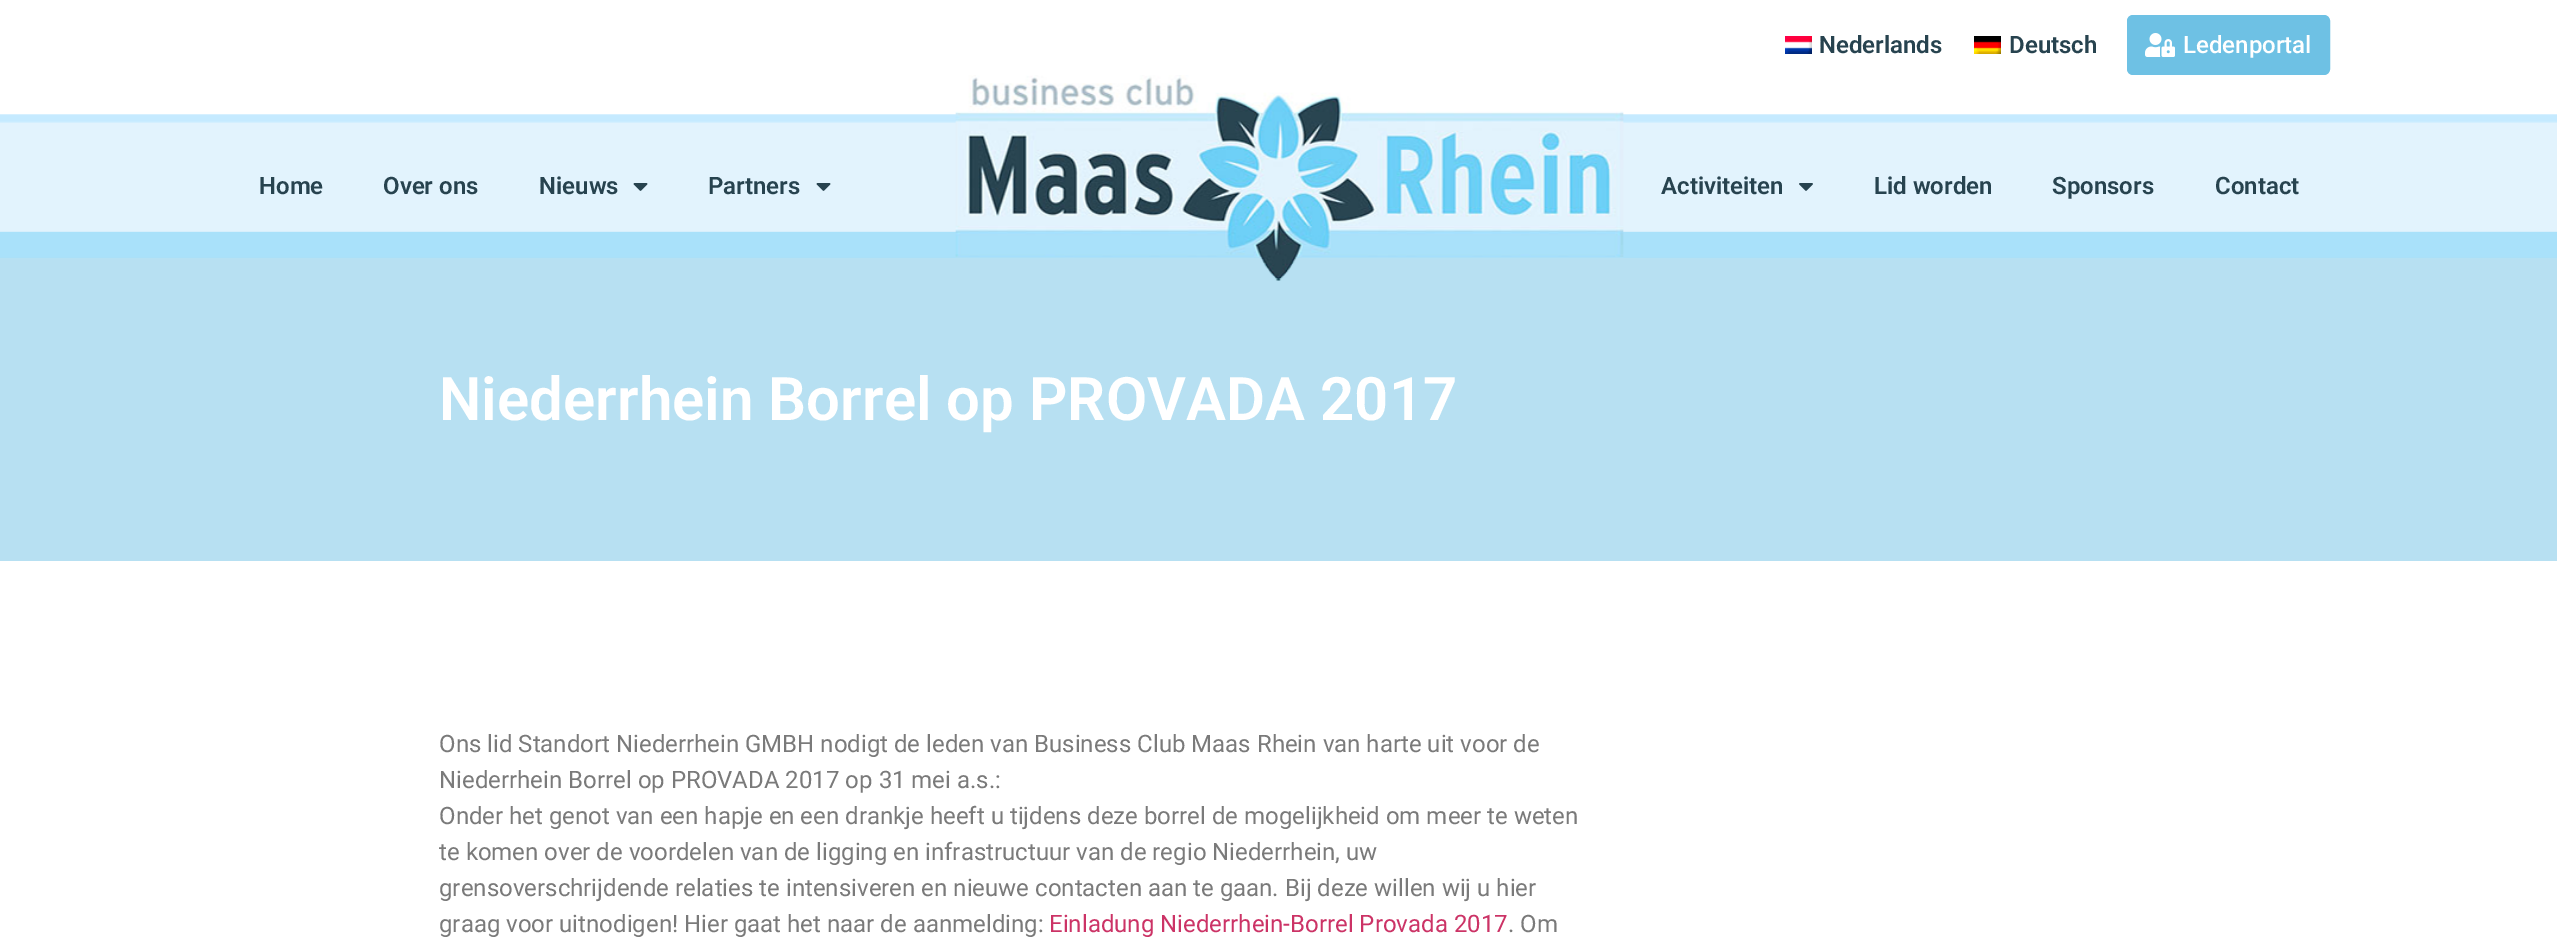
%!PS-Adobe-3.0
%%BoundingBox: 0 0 2557 948
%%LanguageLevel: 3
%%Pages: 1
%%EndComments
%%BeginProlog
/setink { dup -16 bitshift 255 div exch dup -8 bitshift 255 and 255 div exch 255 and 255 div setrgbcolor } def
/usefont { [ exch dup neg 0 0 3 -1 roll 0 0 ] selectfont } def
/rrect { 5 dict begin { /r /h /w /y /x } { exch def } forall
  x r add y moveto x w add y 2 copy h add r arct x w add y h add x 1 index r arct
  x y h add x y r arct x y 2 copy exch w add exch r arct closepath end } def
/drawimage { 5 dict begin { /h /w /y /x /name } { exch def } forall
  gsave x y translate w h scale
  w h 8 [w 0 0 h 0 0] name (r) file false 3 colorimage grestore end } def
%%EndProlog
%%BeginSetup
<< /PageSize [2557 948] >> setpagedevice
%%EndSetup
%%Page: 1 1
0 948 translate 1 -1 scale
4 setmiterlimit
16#FFFFFF setink
0 0 2557 948 rectfill
(img1.raw) 1785 36 27 18 drawimage
/Roboto-SemiBold 24 usefont
16#27434F setink
1819 53 moveto (Nederlands) show
(img2.raw) 1974 36 27 18 drawimage
2009 53 moveto (Deutsch) show
16#6EC1E4 setink
2128.5 16.5 200 57 4.5 rrect gsave fill grestore
3 setlinewidth
stroke
(img3.raw) 2145 33 30 24 drawimage
/Roboto-Medium 24 usefont
16#FFFFFF setink
2183 53 moveto (Ledenportal) show
16#B7E0F2 setink
0 257 2557 304 rectfill
(img4.raw) 0 75 2557 206 drawimage
/Roboto-SemiBold 24 usefont
16#27434F setink
[
    [(Home) 259 194]
    [(Over ons) 383 194]
    [(Nieuws) 539 194]
] { aload pop moveto show } forall
(img5.raw) 633 183 15 8 drawimage
708 194 moveto (Partners) show
(img5.raw) 816 183 15 8 drawimage
1661 194 moveto (Activiteiten) show
(img6.raw) 1799 183 14 8 drawimage
[
    [(Lid worden) 1874 194]
    [(Sponsors) 2052 194]
    [(Contact) 2215 194]
] { aload pop moveto show } forall
/Roboto-SemiBold 60 usefont
16#FFFFFF setink
439 420 moveto (Niederrhein Borrel op PROVADA 2017) show
/Roboto-Regular 24 usefont
16#7A7A7A setink
[
    [(Ons lid Standort Niederrhein GMBH nodigt de leden van Business Club Maas Rhein van harte uit voor de) 439 752]
    [(Niederrhein Borrel op PROVADA 2017 op 31 mei a.s.:) 439 788]
    [(Onder het genot van een hapje en een drankje heeft u tijdens deze borrel de mogelijkheid om meer te weten) 439 824]
    [(te komen over de voordelen van de ligging en infrastructuur van de regio Niederrhein, uw) 439 860]
    [(grensoverschrijdende relaties te intensiveren en nieuwe contacten aan te gaan. Bij deze willen wij u hier) 439 896]
    [(graag voor uitnodigen! Hier gaat het naar de aanmelding:) 439 932]
] { aload pop moveto show } forall
16#CC3366 setink
1049 932 moveto (Einladung Niederrhein-Borrel Provada 2017) show
16#7A7A7A setink
1508 932 moveto (. Om) show
showpage
%%EOF
